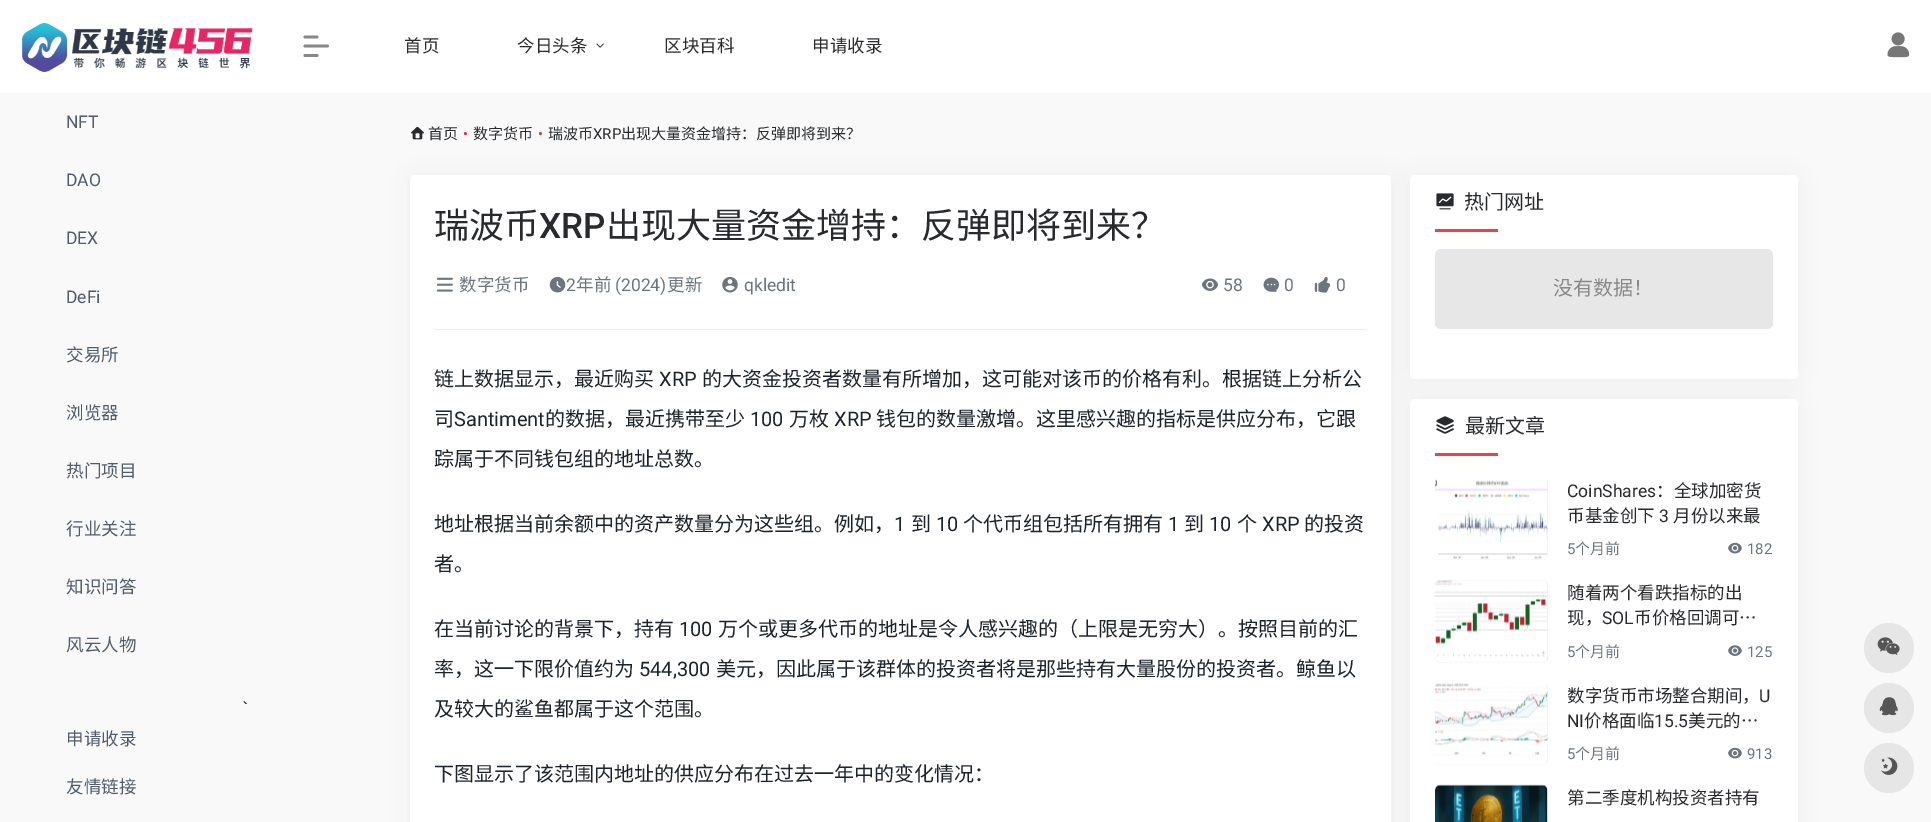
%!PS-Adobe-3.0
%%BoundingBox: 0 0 1931 822
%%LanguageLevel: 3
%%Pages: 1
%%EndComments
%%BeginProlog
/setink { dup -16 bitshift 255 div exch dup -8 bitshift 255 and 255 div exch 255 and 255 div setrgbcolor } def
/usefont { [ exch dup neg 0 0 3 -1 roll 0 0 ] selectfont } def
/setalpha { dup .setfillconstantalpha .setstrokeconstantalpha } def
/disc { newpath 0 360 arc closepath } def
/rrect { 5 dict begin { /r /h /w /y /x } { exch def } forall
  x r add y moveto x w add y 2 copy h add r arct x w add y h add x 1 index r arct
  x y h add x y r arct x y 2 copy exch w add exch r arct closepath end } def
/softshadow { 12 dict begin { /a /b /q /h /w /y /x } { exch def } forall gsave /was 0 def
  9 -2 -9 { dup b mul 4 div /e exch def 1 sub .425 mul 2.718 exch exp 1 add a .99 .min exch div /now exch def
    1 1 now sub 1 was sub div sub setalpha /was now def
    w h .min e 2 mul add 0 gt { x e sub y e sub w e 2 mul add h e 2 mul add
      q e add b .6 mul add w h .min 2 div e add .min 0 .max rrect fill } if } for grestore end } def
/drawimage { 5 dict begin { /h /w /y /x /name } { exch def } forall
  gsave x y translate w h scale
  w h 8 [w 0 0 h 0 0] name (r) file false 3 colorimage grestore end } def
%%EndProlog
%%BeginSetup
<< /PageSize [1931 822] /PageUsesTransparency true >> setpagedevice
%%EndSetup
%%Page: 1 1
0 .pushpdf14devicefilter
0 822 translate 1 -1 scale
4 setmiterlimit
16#F9F9F9 setink
0 0 1931 822 rectfill
16#FFFFFF setink
0 0 1931 93 rectfill
(img1.raw) 22 23 231 49 drawimage
/Roboto-Regular 17.5 usefont
16#515C6B setink
[
    [(NFT) 66 128]
    [(DAO) 66 186]
    [(DEX) 66 244]
    [(DeFi) 66 303]
] { aload pop moveto show } forall
/NotoSansCJKSC-Regular 17.5 usefont
[
    [(交易所) 66 361]
    [(浏览器) 66 419]
    [(热门项目) 66 477]
    [(行业关注) 66 535]
    [(知识问答) 66 593]
    [(风云人物) 66 651]
] { aload pop moveto show } forall
(img2.raw) 243 701 5 3 drawimage
66 745 moveto (申请收录) show
66 793 moveto (友情链接) show
16#888888 setink
2.8 setlinewidth
1 setlinecap
1 setlinejoin
305 37 moveto 317 37 lineto 305 46 moveto 327.5 46 lineto 305 55.5 moveto 317 55.5 lineto stroke
16#282A2D setink
404 52 moveto (首页) show
517 52 moveto (今日头条) show
(img3.raw) 596 43 8 5 drawimage
664 52 moveto (区块百科) show
812 52 moveto (申请收录) show
(img4.raw) 1887 32 23 26 drawimage
(img5.raw) 411 126 13 14 drawimage
/NotoSansCJKSC-Regular 15 usefont
428 139 moveto (首页) show
/Roboto-Regular 15 usefont
16#DC3545 setink
463 139 moveto (•) show
/NotoSansCJKSC-Regular 15 usefont
16#282A2D setink
473 139 moveto (数字货币) show
/Roboto-Regular 15 usefont
16#DC3545 setink
538 139 moveto (•) show
/NotoSansCJKSC-Regular 15 usefont
16#282A2D setink
548 139 moveto (瑞波币) show
/Roboto-Regular 15 usefont
593 139 moveto (XRP) show
/NotoSansCJKSC-Regular 15 usefont
621 139 moveto (出现大量资金增持：反弹即将到来？) show
16#9E9E9E setink
416 181 969 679 0 12.5 0.2 softshadow
16#FFFFFF setink
410 175 981 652 5 rrect fill
/NotoSansCJKSC-Regular 35 usefont
16#282A2D setink
434 238 moveto (瑞波币) show
/Roboto-Medium 35 usefont
539 238 moveto (XRP) show
/NotoSansCJKSC-Regular 35 usefont
606 238 moveto (出现大量资金增持：反弹即将到来？) show
16#ECECEC setink
435 329 931 1 rectfill
(img6.raw) 436 277 17 15 drawimage
/NotoSansCJKSC-Regular 17.5 usefont
16#6C757D setink
459 291 moveto (数字货币) show
(img7.raw) 549 276 17 17 drawimage
/Roboto-Regular 17.5 usefont
566 291 moveto (2) show
/NotoSansCJKSC-Regular 17.5 usefont
576 291 moveto (年前) show
/Roboto-Regular 17.5 usefont
615 291 moveto (\(2024\)) show
/NotoSansCJKSC-Regular 17.5 usefont
667 291 moveto (更新) show
(img8.raw) 722 276 16 17 drawimage
/Roboto-Regular 17.5 usefont
744 291 moveto (qkledit) show
(img9.raw) 1202 278 16 13 drawimage
1223 291 moveto (58) show
(img10.raw) 1263 277 16 15 drawimage
1284 291 moveto (0) show
(img11.raw) 1314 276 17 17 drawimage
1336 291 moveto (0) show
/NotoSansCJKSC-Regular 20 usefont
16#1D232B setink
434 386 moveto (链上数据显示，最近购买) show
/Roboto-Regular 20 usefont
659 386 moveto (XRP) show
/NotoSansCJKSC-Regular 20 usefont
702 386 moveto (的大资金投资者数量有所增加，这可能对该币的价格有利。根据链上分析公) show
434 426 moveto (司) show
/Roboto-Regular 20 usefont
454 426 moveto (Santiment) show
/NotoSansCJKSC-Regular 20 usefont
545 426 moveto (的数据，最近携带至少) show
/Roboto-Regular 20 usefont
750 426 moveto (100) show
/NotoSansCJKSC-Regular 20 usefont
789 426 moveto (万枚) show
/Roboto-Regular 20 usefont
834 426 moveto (XRP) show
/NotoSansCJKSC-Regular 20 usefont
[
    [(钱包的数量激增。这里感兴趣的指标是供应分布，它跟) 876 426]
    [(踪属于不同钱包组的地址总数。) 434 466]
    [(地址根据当前余额中的资产数量分为这些组。例如，) 434 531]
] { aload pop moveto show } forall
/Roboto-Regular 20 usefont
894 531 moveto (1) show
/NotoSansCJKSC-Regular 20 usefont
911 531 moveto (到) show
/Roboto-Regular 20 usefont
936 531 moveto (10) show
/NotoSansCJKSC-Regular 20 usefont
963 531 moveto (个代币组包括所有拥有) show
/Roboto-Regular 20 usefont
1168 531 moveto (1) show
/NotoSansCJKSC-Regular 20 usefont
1184 531 moveto (到) show
/Roboto-Regular 20 usefont
1209 531 moveto (10) show
/NotoSansCJKSC-Regular 20 usefont
1237 531 moveto (个) show
/Roboto-Regular 20 usefont
1262 531 moveto (XRP) show
/NotoSansCJKSC-Regular 20 usefont
[
    [(的投资) 1304 531]
    [(者。) 434 571]
    [(在当前讨论的背景下，持有) 434 636]
] { aload pop moveto show } forall
/Roboto-Regular 20 usefont
679 636 moveto (100) show
/NotoSansCJKSC-Regular 20 usefont
718 636 moveto (万个或更多代币的地址是令人感兴趣的（上限是无穷大）。按照目前的汇) show
434 676 moveto (率，这一下限价值约为) show
/Roboto-Regular 20 usefont
639 676 moveto (544,300) show
/NotoSansCJKSC-Regular 20 usefont
[
    [(美元，因此属于该群体的投资者将是那些持有大量股份的投资者。鲸鱼以) 716 676]
    [(及较大的鲨鱼都属于这个范围。) 434 716]
    [(下图显示了该范围内地址的供应分布在过去一年中的变化情况：) 434 781]
] { aload pop moveto show } forall
16#9E9E9E setink
1416 181 375 192 0 12.5 0.2 softshadow
16#FFFFFF setink
1410 175 388 204 5 rrect fill
(img12.raw) 1436 193 18 17 drawimage
16#282A2D setink
1464 209 moveto (热门网址) show
16#F1404B setink
1435 229 63 3 rectfill
16#E7E7E7 setink
1435 249 338 80 6 rrect fill
16#888888 setink
1553 295 moveto (没有数据！) show
16#9E9E9E setink
1416 405 375 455 0 12.5 0.2 softshadow
16#FFFFFF setink
1410 399 388 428 5 rrect fill
(img13.raw) 1436 416 18 18 drawimage
16#282A2D setink
1465 433 moveto (最新文章) show
16#F1404B setink
1435 453 63 3 rectfill
16#F2F2F2 setink
1435 478 113 82 5 rrect fill
(img14.raw) 1435 478 113 82 drawimage
/Roboto-Regular 17.5 usefont
16#282A2D setink
1567 497 moveto (CoinShares) show
/NotoSansCJKSC-Regular 17.5 usefont
1656 497 moveto (：全球加密货) show
1567 522 moveto (币基金创下) show
/Roboto-Regular 17.5 usefont
1659 522 moveto (3) show
/NotoSansCJKSC-Regular 17.5 usefont
1673 522 moveto (月份以来最) show
/Roboto-Regular 15 usefont
16#6C757D setink
1567 554 moveto (5) show
/NotoSansCJKSC-Regular 15 usefont
1575 554 moveto (个月前) show
(img15.raw) 1728 542 14 12 drawimage
/Roboto-Regular 15 usefont
1747 554 moveto (182) show
16#F2F2F2 setink
1435 580 113 83 5 rrect fill
(img16.raw) 1435 580 112 83 drawimage
/NotoSansCJKSC-Regular 17.5 usefont
16#282A2D setink
1567 599 moveto (随着两个看跌指标的出) show
gsave
1568 580 205 50 rectclip
1567 624 moveto (现，) show
grestore
/Roboto-Regular 17.5 usefont
1602 624 moveto (SOL) show
/NotoSansCJKSC-Regular 17.5 usefont
1634 624 moveto (币价格回调可…) show
/Roboto-Regular 15 usefont
16#6C757D setink
1567 657 moveto (5) show
/NotoSansCJKSC-Regular 15 usefont
1575 657 moveto (个月前) show
(img17.raw) 1728 645 14 11 drawimage
/Roboto-Regular 15 usefont
1747 657 moveto (125) show
16#F2F2F2 setink
1435 683 113 82 5 rrect fill
(img18.raw) 1435 683 113 82 drawimage
gsave
1568 683 205 50 rectclip
/NotoSansCJKSC-Regular 17.5 usefont
16#282A2D setink
1567 702 moveto (数字货币市场整合期间，) show
grestore
/Roboto-Regular 17.5 usefont
16#282A2D setink
1759 702 moveto (U) show
1567 727 moveto (NI) show
/NotoSansCJKSC-Regular 17.5 usefont
1584 727 moveto (价格面临) show
/Roboto-Regular 17.5 usefont
1654 727 moveto (15.5) show
/NotoSansCJKSC-Regular 17.5 usefont
1688 727 moveto (美元的…) show
/Roboto-Regular 15 usefont
16#6C757D setink
1567 759 moveto (5) show
/NotoSansCJKSC-Regular 15 usefont
1575 759 moveto (个月前) show
(img15.raw) 1728 747 14 12 drawimage
/Roboto-Regular 15 usefont
1747 759 moveto (913) show
16#F2F2F2 setink
1435 785 113 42 5 rrect fill
(img19.raw) 1435 784 113 38 drawimage
/NotoSansCJKSC-Regular 17.5 usefont
16#282A2D setink
1567 804 moveto (第二季度机构投资者持有) show
16#E6E6E6 setink
1889 648 25 disc fill
(img20.raw) 1877 637 23 18 drawimage
1889 708 25 disc fill
(img21.raw) 1879 697 19 19 drawimage
1889 768 25 disc fill
(img22.raw) 1881 757 17 18 drawimage
.poppdf14devicefilter showpage
%%EOF
